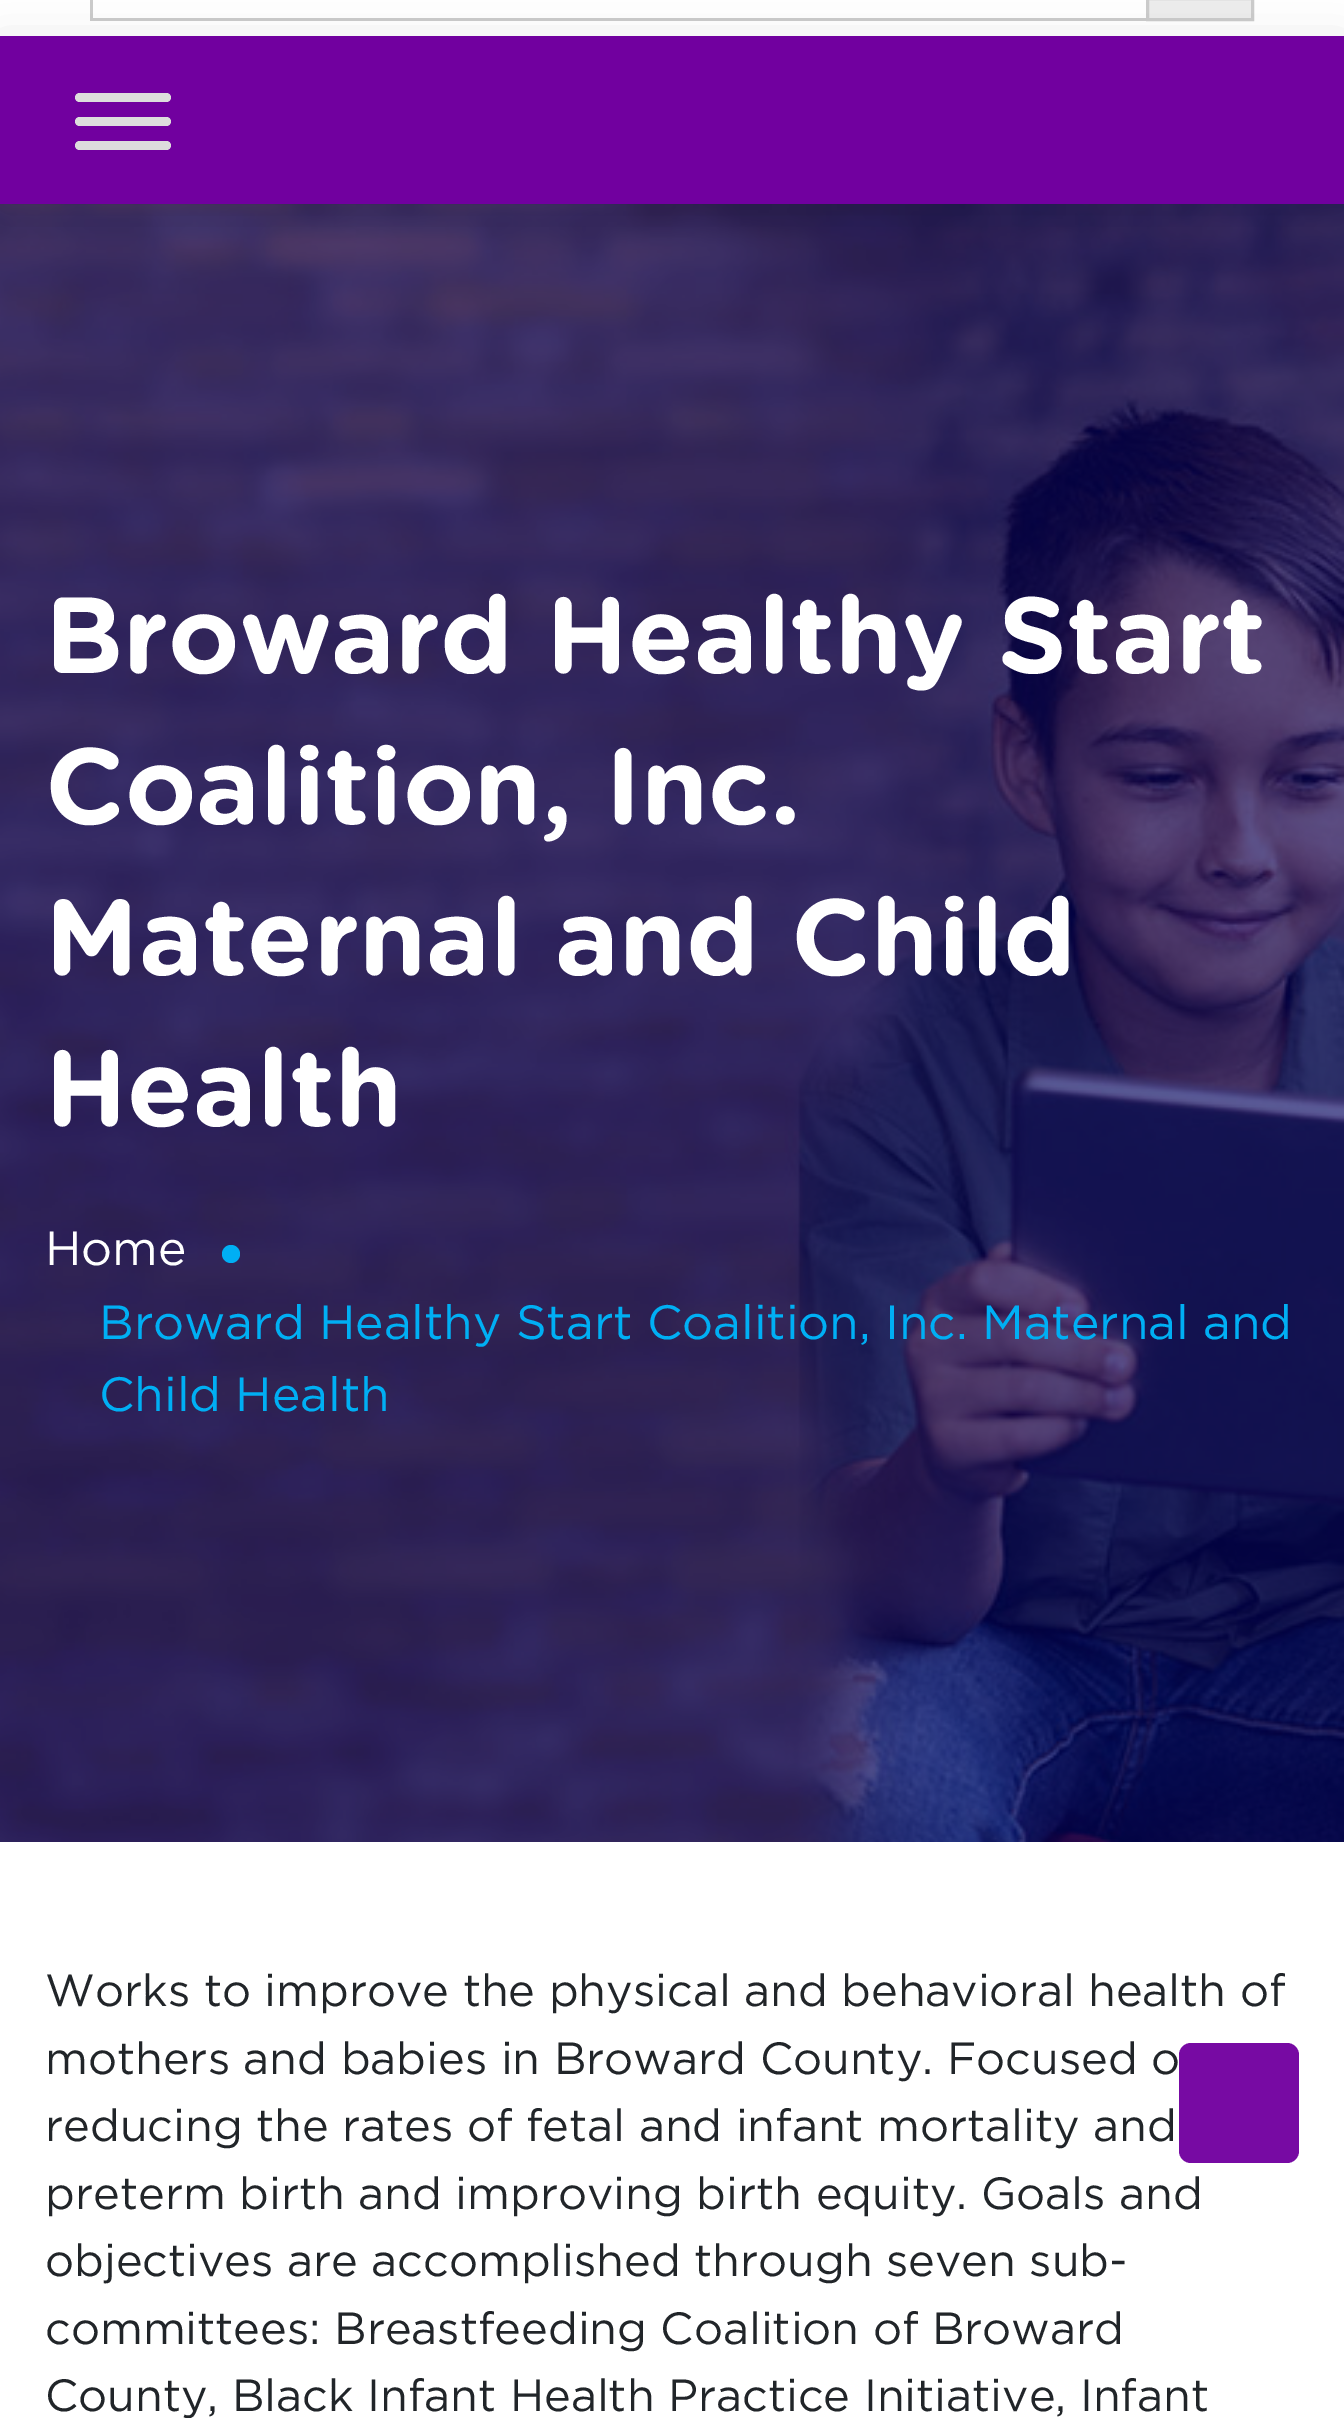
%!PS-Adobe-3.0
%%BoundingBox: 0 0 1344 2418
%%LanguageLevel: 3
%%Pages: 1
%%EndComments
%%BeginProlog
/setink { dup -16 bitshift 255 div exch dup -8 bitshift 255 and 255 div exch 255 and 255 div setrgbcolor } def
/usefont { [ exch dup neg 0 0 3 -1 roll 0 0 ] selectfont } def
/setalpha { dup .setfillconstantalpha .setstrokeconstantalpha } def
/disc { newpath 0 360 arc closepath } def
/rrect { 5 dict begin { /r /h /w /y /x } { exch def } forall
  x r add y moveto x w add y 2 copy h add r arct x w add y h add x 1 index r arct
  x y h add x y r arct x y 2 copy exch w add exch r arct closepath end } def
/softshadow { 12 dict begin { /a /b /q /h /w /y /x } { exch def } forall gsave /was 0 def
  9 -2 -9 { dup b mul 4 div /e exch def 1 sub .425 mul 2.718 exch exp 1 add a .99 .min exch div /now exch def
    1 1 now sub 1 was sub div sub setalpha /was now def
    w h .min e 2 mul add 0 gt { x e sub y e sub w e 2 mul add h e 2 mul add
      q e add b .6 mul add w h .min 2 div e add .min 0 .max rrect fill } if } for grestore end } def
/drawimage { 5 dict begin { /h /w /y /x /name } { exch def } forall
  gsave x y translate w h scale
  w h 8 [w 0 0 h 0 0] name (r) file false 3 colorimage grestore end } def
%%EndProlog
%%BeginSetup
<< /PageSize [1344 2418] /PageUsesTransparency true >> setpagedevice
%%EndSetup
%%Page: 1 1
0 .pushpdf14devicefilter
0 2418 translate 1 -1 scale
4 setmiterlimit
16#FFFFFF setink
0 0 1344 2418 rectfill
16#CCCCCC setink
90 18 1056 3 rectfill
90 0 3 21 rectfill
16#EDEDED setink
1147.5 -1.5 moveto 1252.5 -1.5 lineto 1252.5 19.5 lineto 1147.5 19.5 lineto closepath gsave fill grestore
16#CCCCCC setink
3 setlinewidth
stroke
(img1.raw) 0 204 1344 1638 drawimage
16#000000 setink
0 42 1344 168 0 22.5 0.1 softshadow
16#71009F setink
0 36 1344 168 rectfill
16#DDDDDD setink
75 93 96 9 4.5 rrect fill
75 117 96 9 4.5 rrect fill
75 141 96 9 4.5 rrect fill
/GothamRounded-Bold 108 usefont
16#FFFFFF setink
[
    [(Broward Healthy Start) 45 673]
    [(Coalition, Inc.) 45 824]
    [(Maternal and Child) 45 975]
    [(Health) 45 1126]
] { aload pop moveto show } forall
/Gotham-Regular 48 usefont
45 1265 moveto (Home) show
16#00AFF4 setink
231 1254 9 disc fill
99 1339 moveto (Broward Healthy Start Coalition, Inc. Maternal and) show
99 1411 moveto (Child Health) show
/Gotham-Regular 45 usefont
16#212529 setink
[
    [(Works to improve the physical and behavioral health of) 45 2006]
    [(mothers and babies in Broward County. Focused o) 45 2074]
    [(reducing the rates of fetal and infant mortality and) 45 2141]
    [(preterm birth and improving birth equity. Goals and) 45 2209]
    [(objectives are accomplished through seven sub-) 45 2276]
    [(committees: Breastfeeding Coalition of Broward) 45 2344]
    [(County, Black Infant Health Practice Initiative, Infant) 45 2411]
] { aload pop moveto show } forall
0.96 setalpha
16#71009F setink
1179 2043 120 120 12 rrect fill
.poppdf14devicefilter showpage
%%EOF
